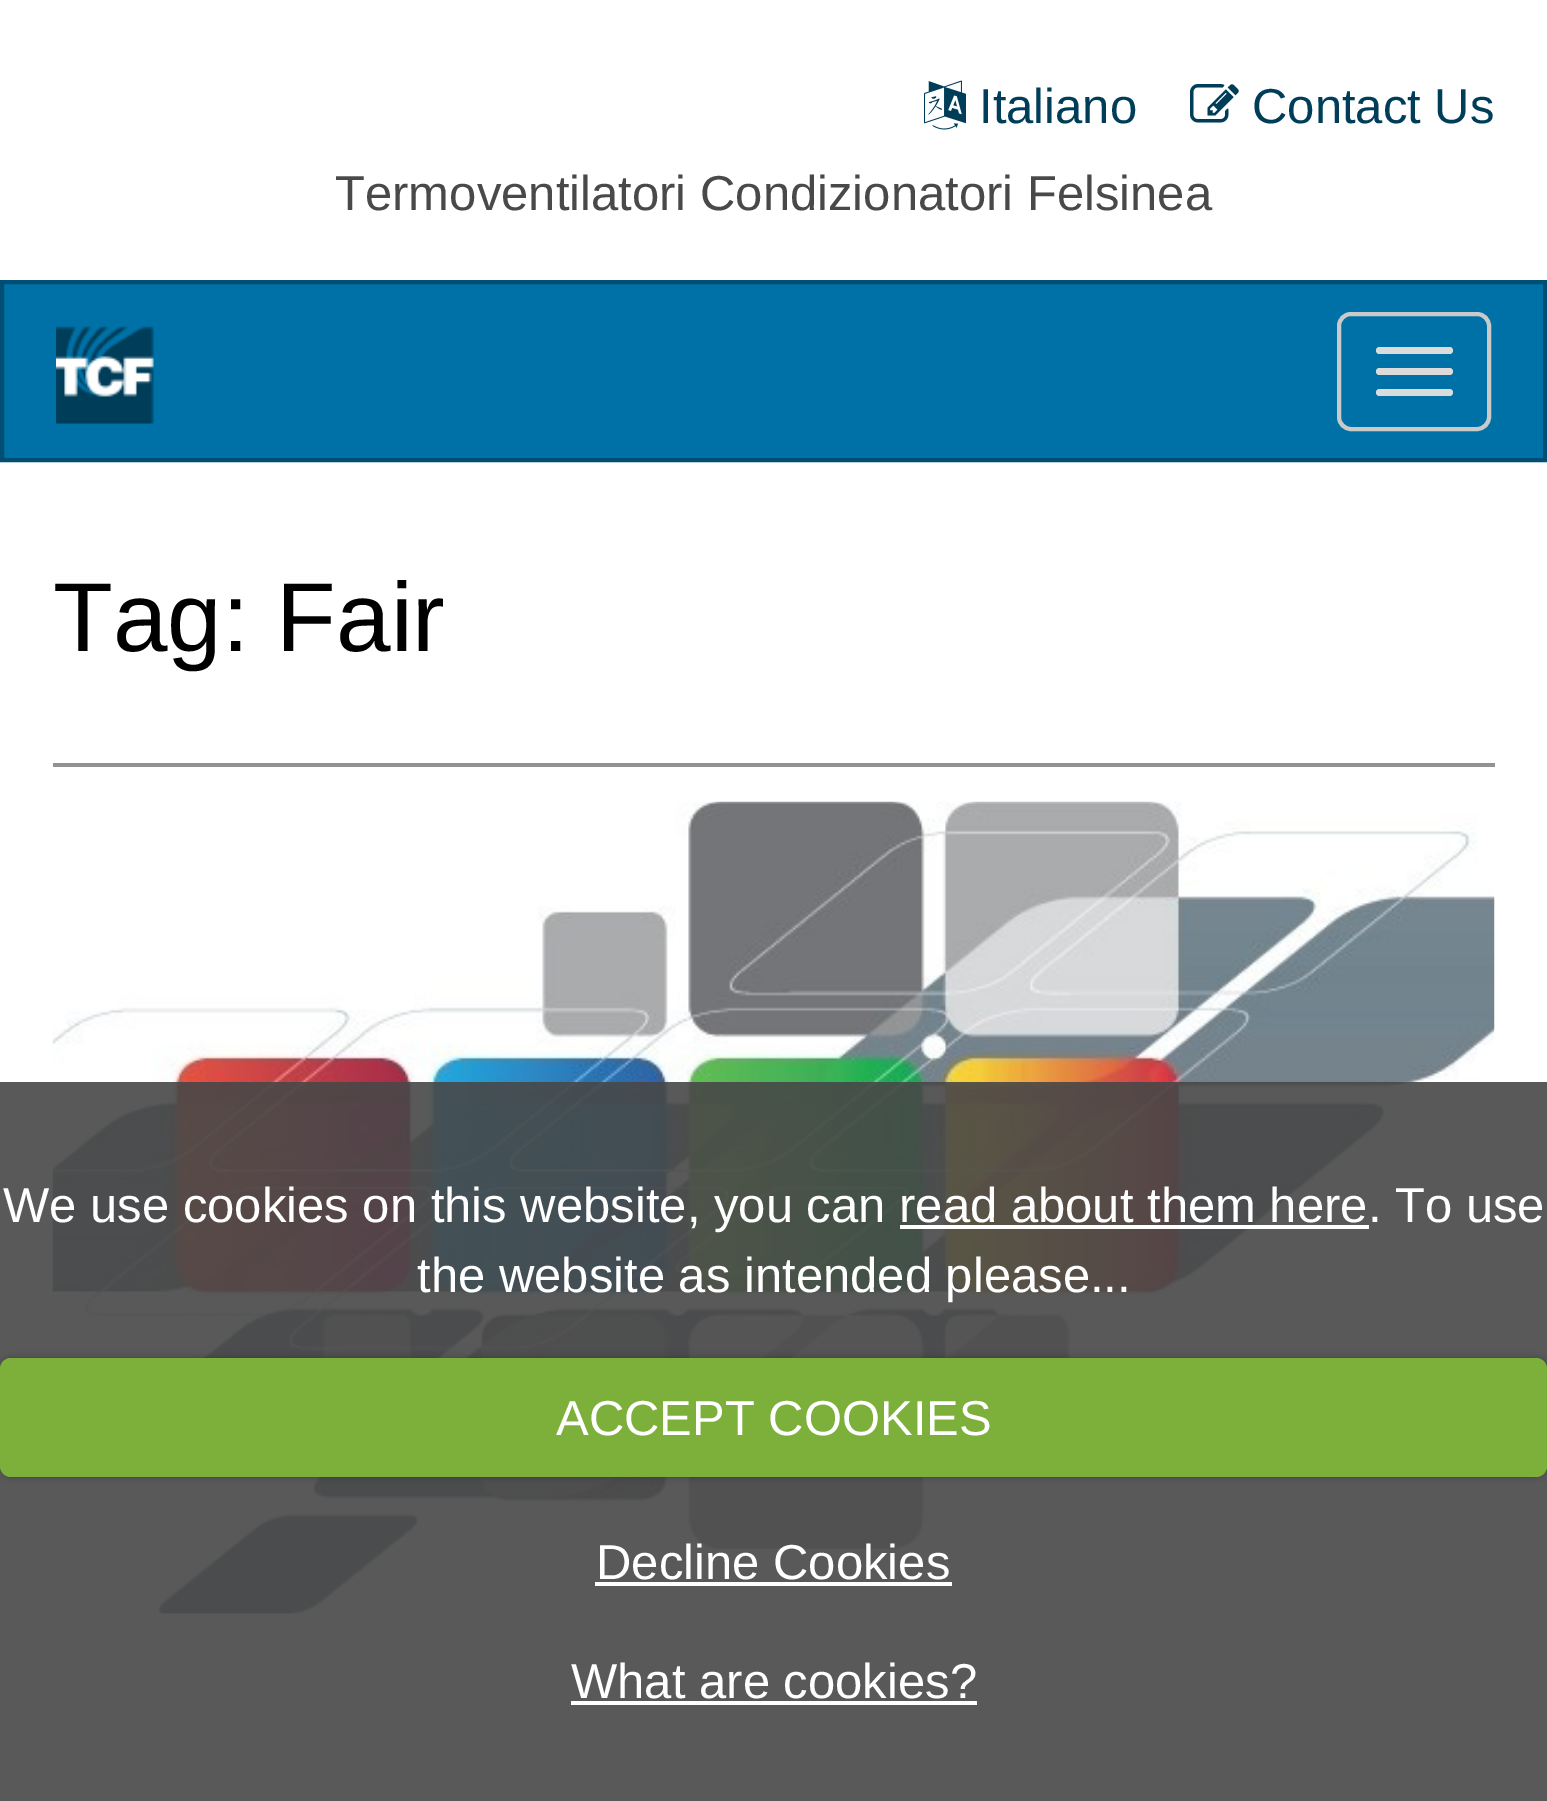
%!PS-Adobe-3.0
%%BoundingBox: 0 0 1547 1801
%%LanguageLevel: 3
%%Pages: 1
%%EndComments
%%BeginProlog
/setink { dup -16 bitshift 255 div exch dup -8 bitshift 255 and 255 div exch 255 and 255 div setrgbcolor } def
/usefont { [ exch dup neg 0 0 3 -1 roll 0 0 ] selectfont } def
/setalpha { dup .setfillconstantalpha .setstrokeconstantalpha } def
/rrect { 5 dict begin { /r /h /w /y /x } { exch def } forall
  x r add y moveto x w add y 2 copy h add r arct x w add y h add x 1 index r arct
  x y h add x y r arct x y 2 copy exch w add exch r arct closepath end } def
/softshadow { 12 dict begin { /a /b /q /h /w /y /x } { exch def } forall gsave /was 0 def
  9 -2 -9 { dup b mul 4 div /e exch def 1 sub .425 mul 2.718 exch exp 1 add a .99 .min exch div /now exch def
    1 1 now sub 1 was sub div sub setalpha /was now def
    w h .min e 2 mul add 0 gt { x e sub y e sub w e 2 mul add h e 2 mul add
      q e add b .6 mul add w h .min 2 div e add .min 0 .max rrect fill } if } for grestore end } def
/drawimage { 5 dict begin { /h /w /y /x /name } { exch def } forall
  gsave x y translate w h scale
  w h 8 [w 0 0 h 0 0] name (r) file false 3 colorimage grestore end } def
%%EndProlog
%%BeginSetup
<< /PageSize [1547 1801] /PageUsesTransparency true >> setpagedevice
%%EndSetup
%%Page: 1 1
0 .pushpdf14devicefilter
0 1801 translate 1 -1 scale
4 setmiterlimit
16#FFFFFF setink
0 0 1547 1801 rectfill
(img1.raw) 924 80 42 50 drawimage
/LiberationSans-Regular 49 usefont
16#003D59 setink
979 123 moveto (Italiano) show
(img2.raw) 1190 84 49 39 drawimage
1252 123 moveto (Contact Us) show
16#494949 setink
335 210 moveto (Termoventilatori Condizionatori Felsinea) show
16#0071A6 setink
2 282 moveto 1545 282 lineto 1545 460 lineto 2 460 lineto closepath gsave fill grestore
16#004E73 setink
4 setlinewidth
stroke
(img3.raw) 56 326 98 98 drawimage
16#CACACA setink
1339 314 150 115 12 rrect stroke
16#DBDBDB setink
1376 347 77 7 3.5 rrect fill
1376 368 77 7 3.5 rrect fill
1376 389 77 7 3.5 rrect fill
16#929292 setink
53 763 1442 4 rectfill
/LiberationSans-Regular 98 usefont
16#000000 setink
53 651 moveto (Tag: Fair) show
(img4.raw) 52 801 1443 813 drawimage
0.9 setalpha
16#474747 setink
0 1082 1547 719 rectfill
/LiberationSans-Regular 49 usefont
1 setalpha
16#FFFFFF setink
3 1222 moveto (We use cookies on this website, you can read about them here. To use) show
900 1225 469 4 rectfill
417 1292 moveto (the website as intended please...) show
16#000000 setink
0 1358 1547 119 11 3.5 0.25 softshadow
16#7DAF3B setink
0 1358 1547 119 11 rrect fill
16#FFFFFF setink
556 1435 moveto (ACCEPT COOKIES) show
596 1579 moveto (Decline Cookies) show
595 1582 357 4 rectfill
571 1698 moveto (What are cookies?) show
571 1701 406 4 rectfill
.poppdf14devicefilter showpage
%%EOF
